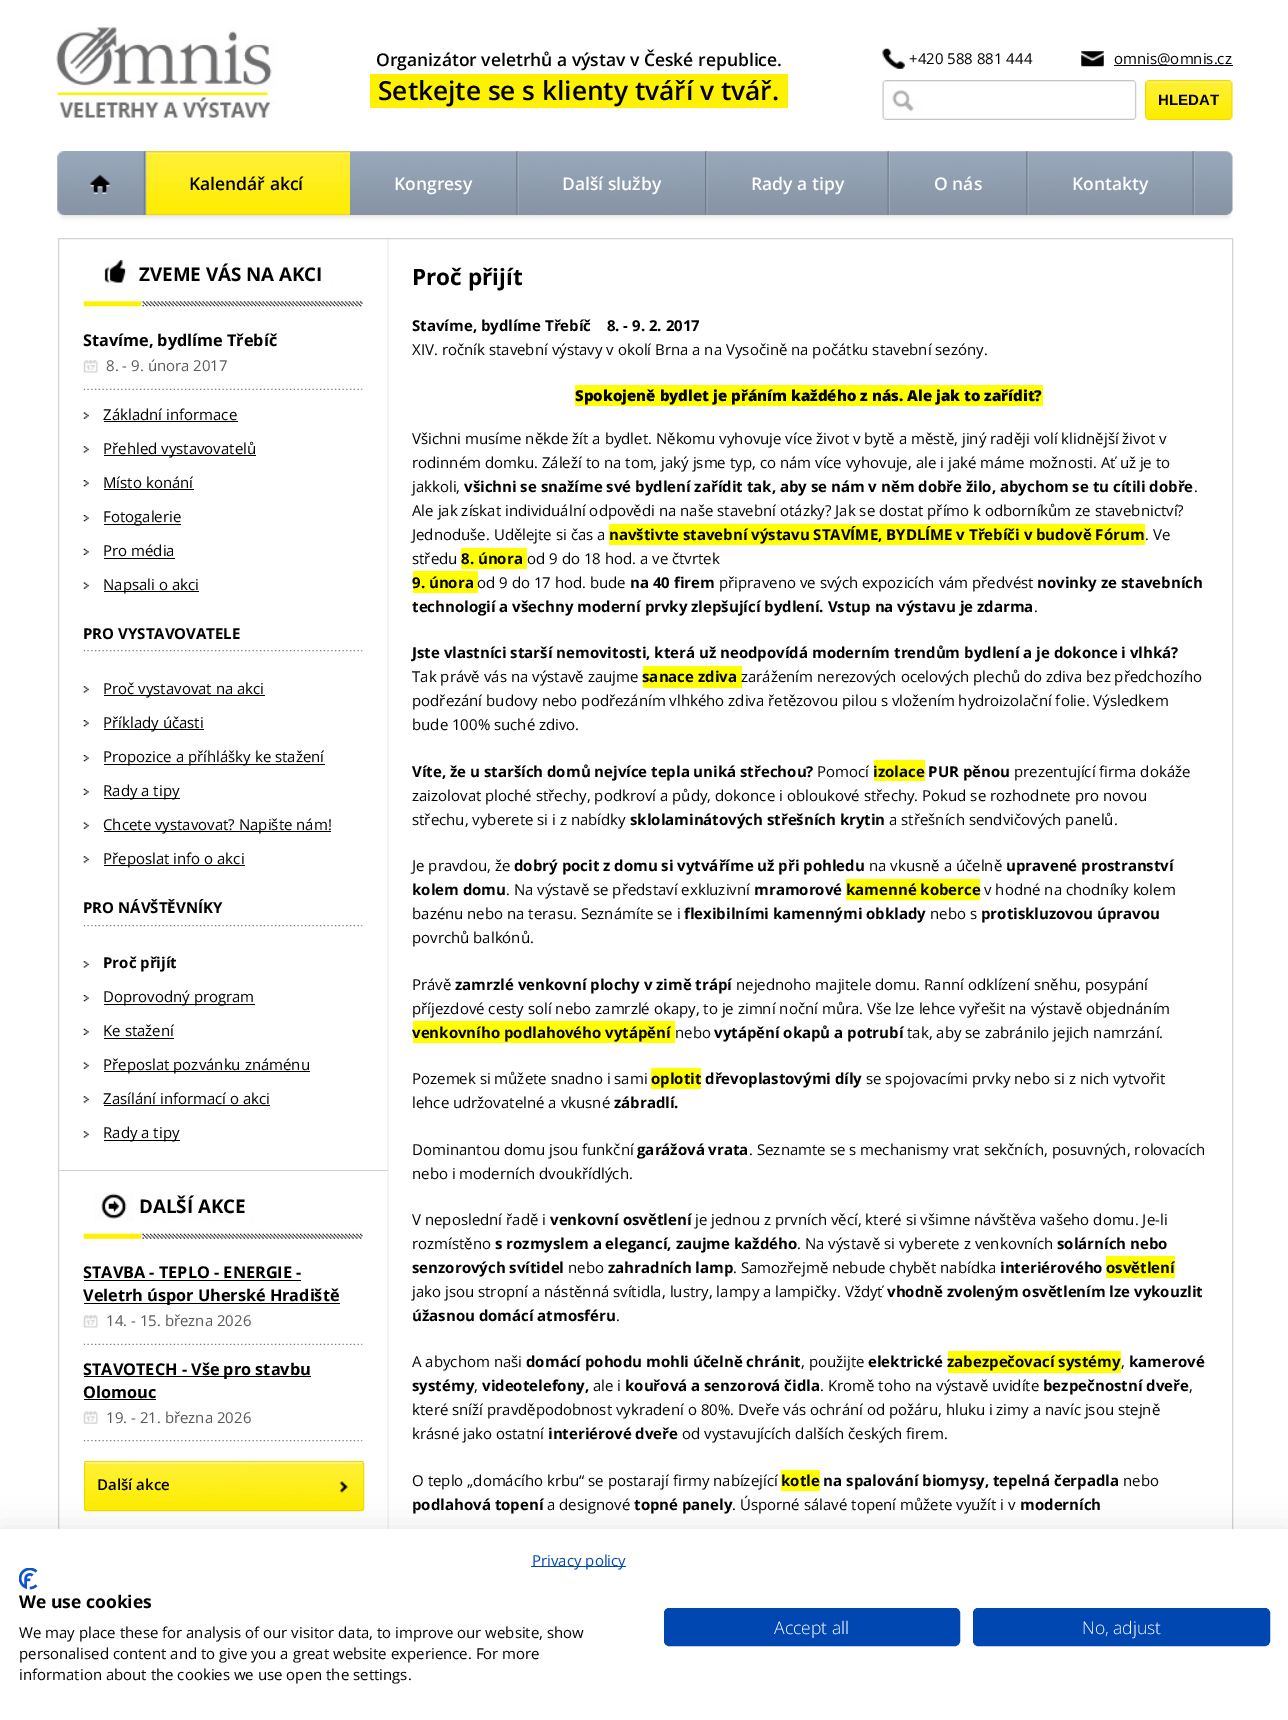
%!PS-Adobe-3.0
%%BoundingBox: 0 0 1288 1720
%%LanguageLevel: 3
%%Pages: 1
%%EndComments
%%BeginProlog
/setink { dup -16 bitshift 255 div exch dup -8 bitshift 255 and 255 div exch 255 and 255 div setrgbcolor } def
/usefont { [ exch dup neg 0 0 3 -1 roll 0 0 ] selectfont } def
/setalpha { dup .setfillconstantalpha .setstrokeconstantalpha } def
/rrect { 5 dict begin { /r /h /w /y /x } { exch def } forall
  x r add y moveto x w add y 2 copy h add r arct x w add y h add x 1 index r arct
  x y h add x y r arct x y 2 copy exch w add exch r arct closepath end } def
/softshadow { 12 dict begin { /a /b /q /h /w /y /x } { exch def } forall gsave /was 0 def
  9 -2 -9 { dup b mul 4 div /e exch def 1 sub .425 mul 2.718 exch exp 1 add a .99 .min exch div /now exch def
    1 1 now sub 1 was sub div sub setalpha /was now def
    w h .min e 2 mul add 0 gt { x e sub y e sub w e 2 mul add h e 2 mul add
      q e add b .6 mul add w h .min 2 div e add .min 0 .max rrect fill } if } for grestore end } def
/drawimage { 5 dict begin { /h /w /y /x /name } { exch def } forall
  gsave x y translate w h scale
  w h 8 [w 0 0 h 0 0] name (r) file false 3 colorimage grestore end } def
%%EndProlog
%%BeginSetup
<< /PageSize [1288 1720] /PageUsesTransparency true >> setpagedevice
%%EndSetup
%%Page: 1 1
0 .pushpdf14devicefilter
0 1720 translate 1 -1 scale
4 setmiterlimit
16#FFFFFF setink
0 0 1288 1720 rectfill
(img1.raw) 56 27 220 91 drawimage
/OpenSans-SemiBold 17.5 usefont
16#000000 setink
376 66 moveto (Organizátor veletrhů a výstav v České republice.) show
16#FFF200 setink
370 74 418 34 rectfill
/OpenSans-SemiBold 26.25 usefont
16#000000 setink
378 100 moveto (Setkejte se s klienty tváří v tvář.) show
(img2.raw) 882 48 23 21 drawimage
/OpenSans-Regular 15 usefont
909 64 moveto (+420 588 881 444) show
(img3.raw) 1081 51 23 16 drawimage
1114 65 119 1 rectfill
1114 64 moveto (omnis@omnis.cz) show
(img4.raw) 882 80 255 40 drawimage
(img5.raw) 1145 80 88 40 drawimage
/LiberationSans-Bold 15 usefont
1158 105 moveto (HLEDAT) show
16#D3D3D3 setink
63 163 1165 53 0 3 1 softshadow
(img6.raw) 57 151 1176 64 drawimage
(img7.raw) 57 151 90 64 drawimage
(img8.raw) 146 151 204 64 drawimage
/OpenSans-SemiBold 17.5 usefont
16#000000 setink
189 190 moveto (Kalendář akcí) show
(img9.raw) 516 151 3 64 drawimage
16#FFFFFF setink
394 190 moveto (Kongresy) show
(img10.raw) 705 151 3 64 drawimage
562 190 moveto (Další služby) show
(img11.raw) 887 151 3 64 drawimage
751 190 moveto (Rady a tipy) show
(img12.raw) 1026 151 3 64 drawimage
934 190 moveto (O nás) show
(img13.raw) 1192 151 3 64 drawimage
1072 190 moveto (Kontakty) show
(img14.raw) 387 239 2 1290 drawimage
16#D3D3D3 setink
58.5 238.5 1174 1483 0.5 rrect stroke
(img15.raw) 83 259 280 48 drawimage
/OpenSans-Bold 18.75 usefont
16#000000 setink
139 281 moveto (ZVEME VÁS NA AKCI) show
(img16.raw) 83 388 280 2 drawimage
/OpenSans-Bold 16.25 usefont
83 346 moveto (Stavíme, bydlíme Třebíč) show
(img17.raw) 83 360 15 13 drawimage
/OpenSans-Regular 15 usefont
16#595959 setink
106 371 moveto (8. - 9. února 2017) show
(img18.raw) 83 412 6 7 drawimage
16#000000 setink
103 420 moveto (Základní informace) show
104 421 134 1 rectfill
(img19.raw) 83 446 6 7 drawimage
104 455 152 1 rectfill
103 454 moveto (Přehled vystavovatelů) show
(img20.raw) 83 480 6 7 drawimage
103 488 moveto (Místo konání) show
104 489 90 1 rectfill
(img20.raw) 83 515 6 7 drawimage
104 524 77 1 rectfill
103 522 moveto (Fotogalerie) show
(img21.raw) 83 548 6 7 drawimage
103 556 moveto (Pro média) show
104 558 71 1 rectfill
(img18.raw) 83 582 6 7 drawimage
104 591 95 1 rectfill
103 590 moveto (Napsali o akci) show
(img22.raw) 83 650 280 2 drawimage
/OpenSans-Bold 15 usefont
83 639 moveto (PRO VYSTAVOVATELE) show
(img19.raw) 83 686 6 7 drawimage
104 695 161 1 rectfill
/OpenSans-Regular 15 usefont
103 694 moveto (Proč vystavovat na akci) show
(img20.raw) 83 720 6 7 drawimage
104 729 100 1 rectfill
103 728 moveto (Příklady účasti) show
(img20.raw) 83 755 6 7 drawimage
104 764 221 1 rectfill
103 762 moveto (Propozice a příhlášky ke stažení) show
(img21.raw) 83 788 6 7 drawimage
104 798 76 1 rectfill
103 796 moveto (Rady a tipy) show
(img18.raw) 83 822 6 7 drawimage
104 831 227 1 rectfill
103 830 moveto (Chcete vystavovat? Napište nám!) show
(img19.raw) 83 856 6 7 drawimage
104 865 141 1 rectfill
103 864 moveto (Přeposlat info o akci) show
(img22.raw) 83 925 280 2 drawimage
/OpenSans-Bold 15 usefont
83 913 moveto (PRO NÁVŠTĚVNÍKY) show
(img19.raw) 83 961 6 7 drawimage
103 968 moveto (Proč přijít) show
(img20.raw) 83 995 6 7 drawimage
104 1004 151 1 rectfill
/OpenSans-Regular 15 usefont
103 1002 moveto (Doprovodný program) show
(img21.raw) 83 1028 6 7 drawimage
103 1036 moveto (Ke stažení) show
104 1038 70 1 rectfill
(img18.raw) 83 1062 6 7 drawimage
104 1071 206 1 rectfill
103 1070 moveto (Přeposlat pozvánku známénu) show
(img19.raw) 83 1096 6 7 drawimage
103 1104 moveto (Zasílání informací o akci) show
104 1105 166 1 rectfill
(img19.raw) 83 1131 6 7 drawimage
104 1140 76 1 rectfill
103 1138 moveto (Rady a tipy) show
16#D3D3D3 setink
59 1170 329 1 rectfill
(img23.raw) 83 1193 280 46 drawimage
/OpenSans-Bold 18.75 usefont
16#000000 setink
139 1213 moveto (DALŠÍ AKCE) show
(img24.raw) 83 1343 280 2 drawimage
/OpenSans-Bold 16.25 usefont
83 1278 moveto (STAVBA - TEPLO - ENERGIE -) show
84 1280 217 1 rectfill
84 1303 256 1 rectfill
83 1301 moveto (Veletrh úspor Uherské Hradiště) show
(img17.raw) 83 1315 15 13 drawimage
/OpenSans-Regular 15 usefont
16#595959 setink
106 1326 moveto (14. - 15. března 2026) show
(img22.raw) 83 1440 280 2 drawimage
16#000000 setink
84 1376 227 1 rectfill
/OpenSans-Bold 16.25 usefont
83 1375 moveto (STAVOTECH - Vše pro stavbu) show
83 1398 moveto (Olomouc) show
84 1399 72 1 rectfill
(img25.raw) 83 1411 15 13 drawimage
/OpenSans-Regular 15 usefont
16#595959 setink
106 1423 moveto (19. - 21. března 2026) show
(img26.raw) 83 1462 281 48 drawimage
16#EDDD01 setink
84.5 1461.5 279 49 2 rrect stroke
/OpenSans-SemiBold 15 usefont
16#000000 setink
97 1490 moveto (Další akce) show
/OpenSans-Bold 22.5 usefont
412 285 moveto (Proč přijít) show
/OpenSans-Bold 15 usefont
412 331 moveto (Stavíme, bydlíme Třebíč    8. - 9. 2. 2017) show
/OpenSans-Regular 15 usefont
412 355 moveto (XIV. ročník stavební výstavy v okolí Brna a na Vysočině na počátku stavební sezóny.) show
16#FFFF00 setink
575 385 468 21 rectfill
/OpenSans-ExtraBold 15 usefont
16#000000 setink
575 401 moveto (Spokojeně bydlet je přáním každého z nás. Ale jak to zařídit?) show
/OpenSans-Regular 15 usefont
[
    [(Všichni musíme někde žít a bydlet. Někomu vyhovuje více život v bytě a městě, jiný raději volí klidnější život v) 412 444]
    [(rodinném domku. Záleží to na tom, jaký jsme typ, co nám více vyhovuje, ale i jaké máme možnosti. Ať už je to) 412 468]
    [(jakkoli,) 412 492]
] { aload pop moveto show } forall
/OpenSans-Bold 15 usefont
464 492 moveto (všichni se snažíme své bydlení zařídit tak, aby se nám v něm dobře žilo, abychom se tu cítili dobře) show
/OpenSans-Regular 15 usefont
[
    [(.) 1194 492]
    [(Ale jak získat individuální odpovědi na naše stavební otázky? Jak se dostat přímo k odborníkům ze stavebnictví?) 412 516]
    [(Jednoduše. Udělejte si čas a) 412 540]
] { aload pop moveto show } forall
16#FFFF00 setink
609 524 536 21 rectfill
/OpenSans-Bold 15 usefont
16#000000 setink
609 540 moveto (navštivte stavební výstavu STAVÍME, BYDLÍME v Třebíči v budově Fórum) show
/OpenSans-Regular 15 usefont
1145 540 moveto (. Ve) show
412 564 moveto (středu) show
16#FFFF00 setink
461 548 66 21 rectfill
/OpenSans-Bold 15 usefont
16#000000 setink
461 564 moveto (8. února) show
/OpenSans-Regular 15 usefont
527 564 moveto (od 9 do 18 hod. a ve čtvrtek) show
16#FFFF00 setink
413 571 65 22 rectfill
/OpenSans-Bold 15 usefont
16#000000 setink
412 588 moveto (9. února) show
/OpenSans-Regular 15 usefont
477 588 moveto (od 9 do 17 hod. bude) show
/OpenSans-Bold 15 usefont
630 588 moveto (na 40 firem) show
/OpenSans-Regular 15 usefont
719 588 moveto (připraveno ve svých expozicích vám předvést) show
/OpenSans-Bold 15 usefont
1037 588 moveto (novinky ze stavebních) show
412 612 moveto (technologií a všechny moderní prvky zlepšující bydlení. Vstup na výstavu je zdarma) show
/OpenSans-Regular 15 usefont
1034 612 moveto (.) show
/OpenSans-Bold 15 usefont
412 658 moveto (Jste vlastníci starší nemovitosti, která už neodpovídá moderním trendům bydlení a je dokonce i vlhká?) show
/OpenSans-Regular 15 usefont
412 682 moveto (Tak právě vás na výstavě zaujme) show
16#FFFF00 setink
643 666 99 22 rectfill
/OpenSans-Bold 15 usefont
16#000000 setink
642 682 moveto (sanace zdiva) show
/OpenSans-Regular 15 usefont
[
    [(zarážením nerezových ocelových plechů do zdiva bez předchozího) 741 682]
    [(podřezání budovy nebo podřezáním vlhkého zdiva řetězovou pilou s vložením hydroizolační folie. Výsledkem) 412 706]
    [(bude 100% suché zdivo.) 412 730]
] { aload pop moveto show } forall
/OpenSans-Bold 15 usefont
412 777 moveto (Víte, že u starších domů nejvíce tepla uniká střechou?) show
/OpenSans-Regular 15 usefont
817 777 moveto (Pomocí) show
16#FFFF00 setink
874 760 51 21 rectfill
/OpenSans-Bold 15 usefont
16#000000 setink
873 777 moveto (izolace PUR pěnou) show
/OpenSans-Regular 15 usefont
[
    [(prezentující firma dokáže) 1014 777]
    [(zaizolovat ploché střechy, podkroví a půdy, dokonce i obloukové střechy. Pokud se rozhodnete pro novou) 412 801]
    [(střechu, vyberete si i z nabídky) 412 825]
] { aload pop moveto show } forall
/OpenSans-Bold 15 usefont
630 825 moveto (sklolaminátových střešních krytin) show
/OpenSans-Regular 15 usefont
889 825 moveto (a střešních sendvičových panelů.) show
412 871 moveto (Je pravdou, že) show
/OpenSans-Bold 15 usefont
514 871 moveto (dobrý pocit z domu si vytváříme už při pohledu) show
/OpenSans-Regular 15 usefont
869 871 moveto (na vkusně a účelně) show
/OpenSans-Bold 15 usefont
1006 871 moveto (upravené prostranství) show
412 895 moveto (kolem domu) show
/OpenSans-Regular 15 usefont
506 895 moveto (. Na výstavě se představí exkluzivní) show
/OpenSans-Bold 15 usefont
754 895 moveto (mramorové) show
16#FFFF00 setink
846 879 134 21 rectfill
16#000000 setink
846 895 moveto (kamenné koberce) show
/OpenSans-Regular 15 usefont
984 895 moveto (v hodné na chodníky kolem) show
412 919 moveto (bazénu nebo na terasu. Seznámíte se i) show
/OpenSans-Bold 15 usefont
684 919 moveto (flexibilními kamennými obklady) show
/OpenSans-Regular 15 usefont
930 919 moveto (nebo s) show
/OpenSans-Bold 15 usefont
981 919 moveto (protiskluzovou úpravou) show
/OpenSans-Regular 15 usefont
412 943 moveto (povrchů balkónů.) show
412 990 moveto (Právě) show
/OpenSans-Bold 15 usefont
455 990 moveto (zamrzlé venkovní plochy v zimě trápí) show
/OpenSans-Regular 15 usefont
736 990 moveto (nejednoho majitele domu. Ranní odklízení sněhu, posypání) show
412 1014 moveto (příjezdové cesty solí nebo zamrzlé okapy, to je zimní noční můra. Vše lze lehce vyřešit na výstavě objednáním) show
16#FFFF00 setink
413 1021 262 22 rectfill
/OpenSans-Bold 15 usefont
16#000000 setink
412 1038 moveto (venkovního podlahového vytápění) show
/OpenSans-Regular 15 usefont
675 1038 moveto (nebo) show
/OpenSans-Bold 15 usefont
714 1038 moveto (vytápění okapů a potrubí) show
/OpenSans-Regular 15 usefont
907 1038 moveto (tak, aby se zabránilo jejich namrzání.) show
412 1084 moveto (Pozemek si můžete snadno i sami) show
16#FFFF00 setink
651 1068 50 21 rectfill
/OpenSans-Bold 15 usefont
16#000000 setink
651 1084 moveto (oplotit dřevoplastovými díly) show
/OpenSans-Regular 15 usefont
866 1084 moveto (se spojovacími prvky nebo si z nich vytvořit) show
412 1108 moveto (lehce udržovatelné a vkusné) show
/OpenSans-Bold 15 usefont
614 1108 moveto (zábradlí.) show
/OpenSans-Regular 15 usefont
412 1155 moveto (Dominantou domu jsou funkční) show
/OpenSans-Bold 15 usefont
637 1155 moveto (garážová vrata) show
/OpenSans-Regular 15 usefont
[
    [(. Seznamte se s mechanismy vrat sekčních, posuvných, rolovacích) 749 1155]
    [(nebo i moderních dvoukřídlých.) 412 1179]
    [(V neposlední řadě i) 412 1225]
] { aload pop moveto show } forall
/OpenSans-Bold 15 usefont
550 1225 moveto (venkovní osvětlení) show
/OpenSans-Regular 15 usefont
695 1225 moveto (je jednou z prvních věcí, které si všimne návštěva vašeho domu. Je-li) show
412 1249 moveto (rozmístěno) show
/OpenSans-Bold 15 usefont
495 1249 moveto (s rozmyslem a elegancí, zaujme každého) show
/OpenSans-Regular 15 usefont
797 1249 moveto (. Na výstavě si vyberete z venkovních) show
/OpenSans-Bold 15 usefont
1057 1249 moveto (solárních nebo) show
412 1273 moveto (senzorových svítidel) show
/OpenSans-Regular 15 usefont
568 1273 moveto (nebo) show
/OpenSans-Bold 15 usefont
608 1273 moveto (zahradních lamp) show
/OpenSans-Regular 15 usefont
733 1273 moveto (. Samozřejmě nebude chybět nabídka) show
/OpenSans-Bold 15 usefont
1000 1273 moveto (interiérového) show
16#FFFF00 setink
1106 1256 69 22 rectfill
16#000000 setink
1106 1273 moveto (osvětlení) show
/OpenSans-Regular 15 usefont
412 1297 moveto (jako jsou stropní a nástěnná svítidla, lustry, lampy a lampičky. Vždyť) show
/OpenSans-Bold 15 usefont
887 1297 moveto (vhodně zvoleným osvětlením lze vykouzlit) show
412 1321 moveto (úžasnou domácí atmosféru) show
/OpenSans-Regular 15 usefont
616 1321 moveto (.) show
412 1367 moveto (A abychom naši) show
/OpenSans-Bold 15 usefont
526 1367 moveto (domácí pohodu mohli účelně chránit) show
/OpenSans-Regular 15 usefont
801 1367 moveto (, použijte) show
/OpenSans-Bold 15 usefont
868 1367 moveto (elektrické) show
16#FFFF00 setink
948 1351 173 22 rectfill
16#000000 setink
947 1367 moveto (zabezpečovací systémy) show
/OpenSans-Regular 15 usefont
1121 1367 moveto (,) show
/OpenSans-Bold 15 usefont
1129 1367 moveto (kamerové) show
412 1391 moveto (systémy) show
/OpenSans-Regular 15 usefont
474 1391 moveto (,) show
/OpenSans-Bold 15 usefont
482 1391 moveto (videotelefony,) show
/OpenSans-Regular 15 usefont
593 1391 moveto (ale i) show
/OpenSans-Bold 15 usefont
625 1391 moveto (kouřová a senzorová čidla) show
/OpenSans-Regular 15 usefont
820 1391 moveto (. Kromě toho na výstavě uvidíte) show
/OpenSans-Bold 15 usefont
1043 1391 moveto (bezpečnostní dveře) show
/OpenSans-Regular 15 usefont
[
    [(,) 1189 1391]
    [(které sníží pravděpodobnost vykradení o 80%. Dveře vás ochrání od požáru, hluku i zimy a navíc jsou stejně) 412 1415]
    [(krásné jako ostatní) 412 1439]
] { aload pop moveto show } forall
/OpenSans-Bold 15 usefont
548 1439 moveto (interiérové dveře) show
/OpenSans-Regular 15 usefont
682 1439 moveto (od vystavujících dalších českých firem.) show
412 1486 moveto (O teplo „domácího krbu“ se postarají firmy nabízející) show
16#FFFF00 setink
781 1470 39 21 rectfill
/OpenSans-Bold 15 usefont
16#000000 setink
781 1486 moveto (kotle na spalování biomysy, tepelná čerpadla) show
/OpenSans-Regular 15 usefont
1123 1486 moveto (nebo) show
/OpenSans-Bold 15 usefont
412 1510 moveto (podlahová topení) show
/OpenSans-Regular 15 usefont
547 1510 moveto (a designové) show
/OpenSans-Bold 15 usefont
634 1510 moveto (topné panely) show
/OpenSans-Regular 15 usefont
732 1510 moveto (. Úsporné sálavé topení můžete využít i v) show
/OpenSans-Bold 15 usefont
1020 1510 moveto (moderních) show
0 1529 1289 191 0 15 0.1 softshadow
16#FFFFFF setink
0 1529 1288 191 rectfill
16#0047B2 setink
531 1566 95 1 rectfill
/OpenSans-Regular 15 usefont
532 1566 moveto (Privacy policy) show
(img27.raw) 19 1568 19 22 drawimage
/OpenSans-Bold 17.5 usefont
16#000000 setink
19 1608 moveto (We use cookies) show
/OpenSans-Regular 15 usefont
[
    [(We may place these for analysis of our visitor data, to improve our website, show) 19 1638]
    [(personalised content and to give you a great website experience. For more) 19 1659]
    [(information about the cookies we use open the settings.) 19 1680]
] { aload pop moveto show } forall
16#0047B2 setink
664.5 1608.5 295 37 4.5 rrect gsave fill grestore
stroke
/OpenSans-Light 17.5 usefont
16#FFFFFF setink
774 1634 moveto (Accept all) show
16#0047B2 setink
973.5 1608.5 296 37 4.5 rrect gsave fill grestore
stroke
16#FFFFFF setink
1082 1634 moveto (No, adjust) show
.poppdf14devicefilter showpage
%%EOF
